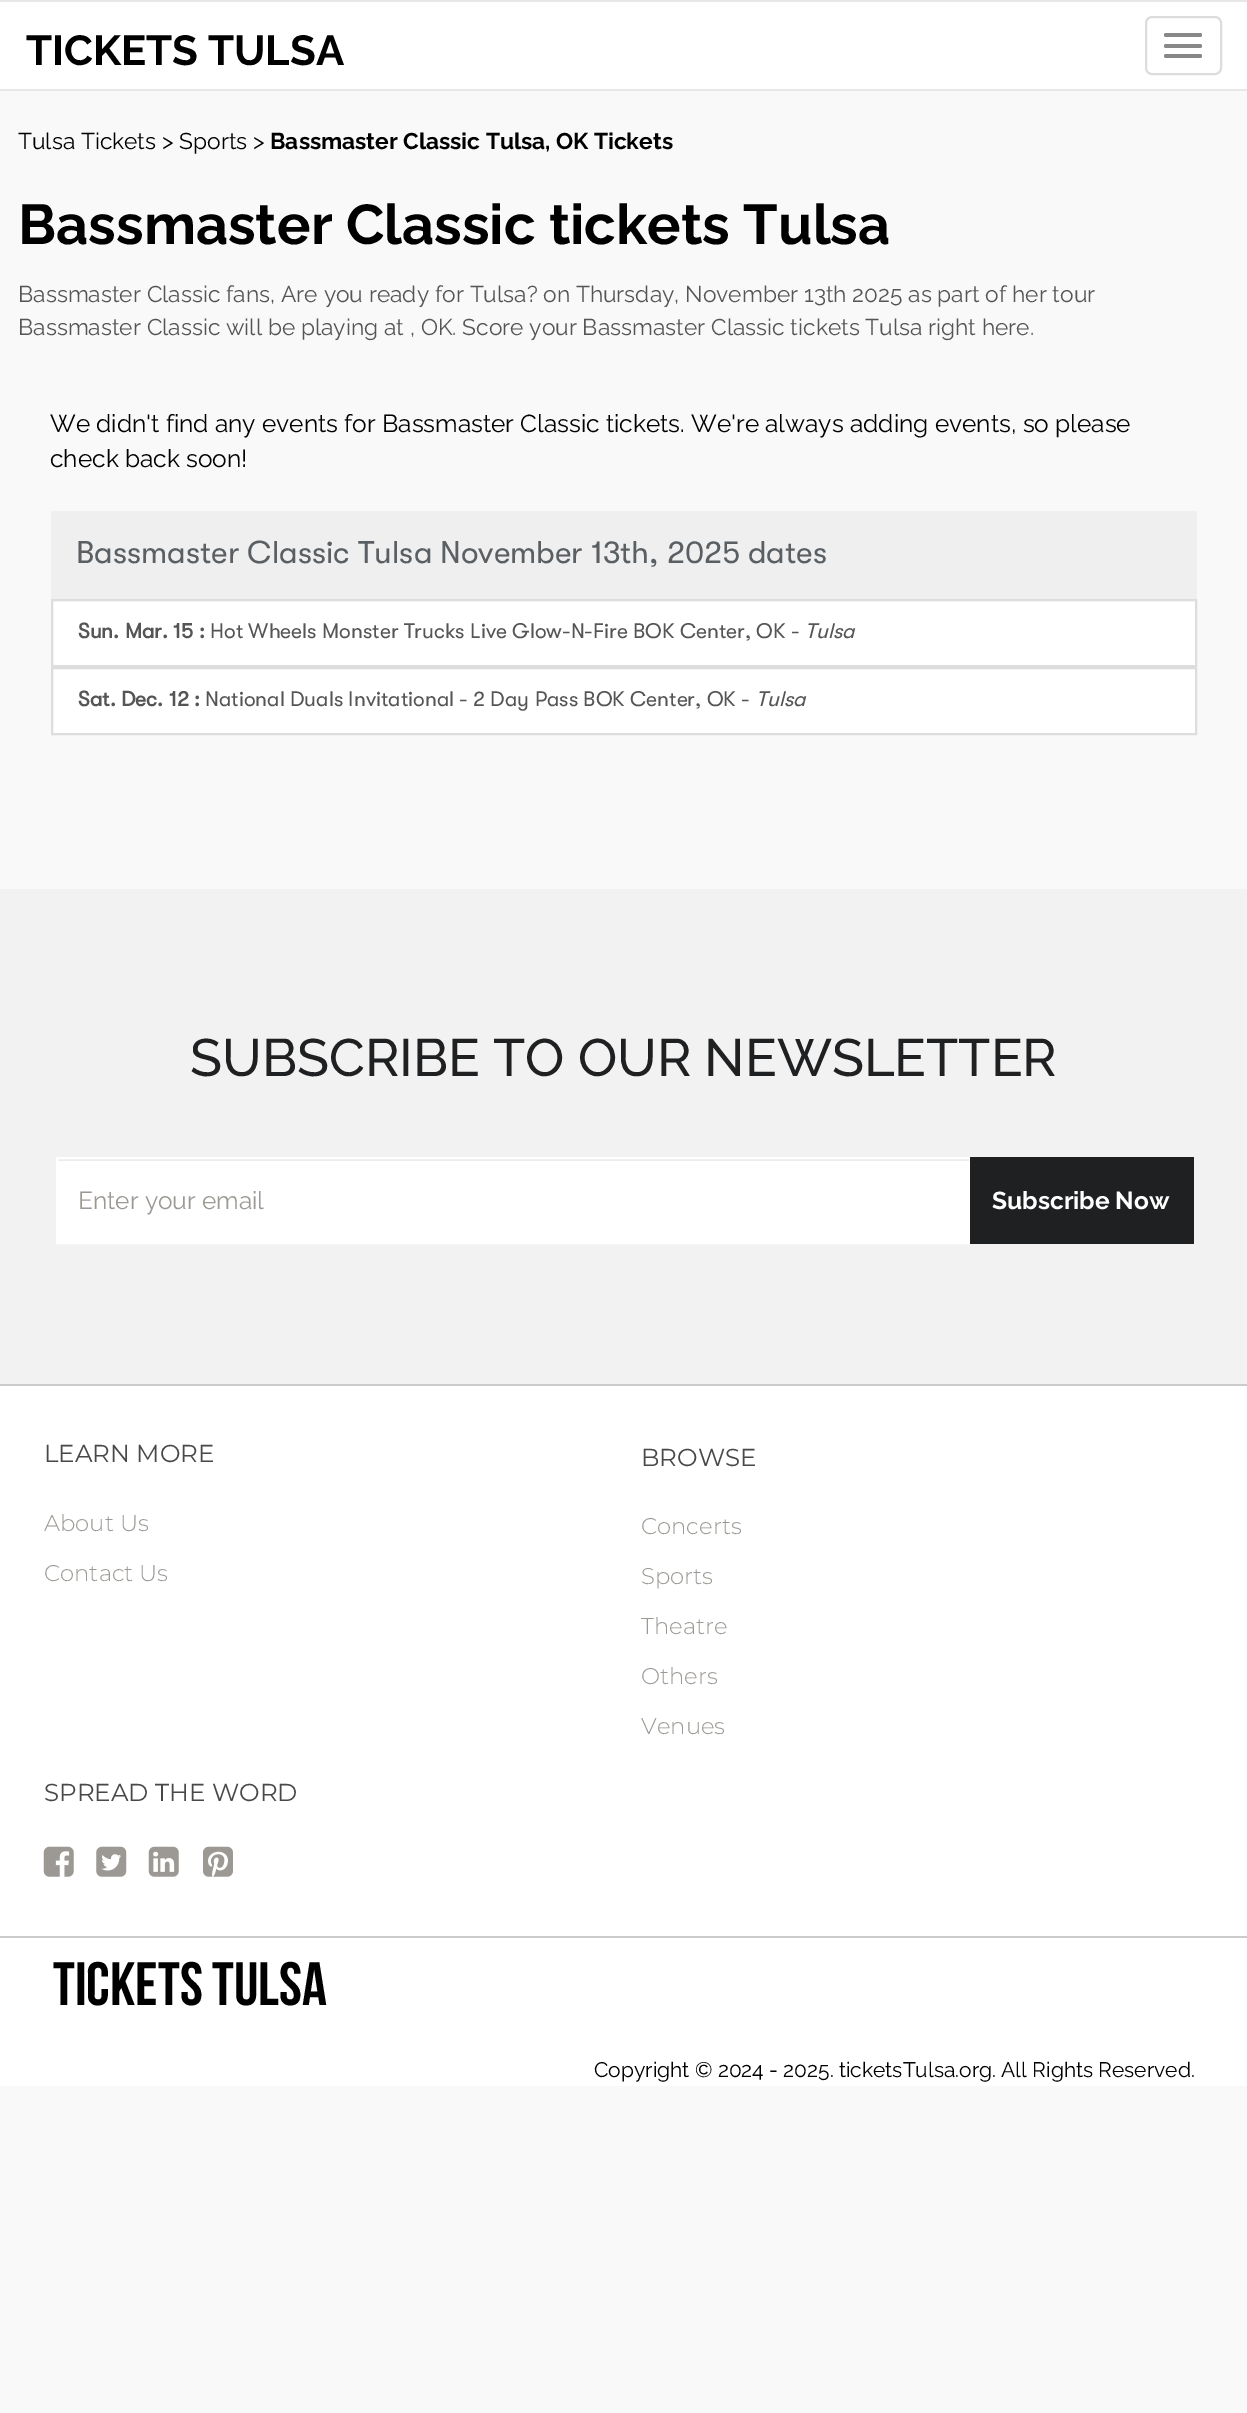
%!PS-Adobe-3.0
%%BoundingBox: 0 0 1247 2413
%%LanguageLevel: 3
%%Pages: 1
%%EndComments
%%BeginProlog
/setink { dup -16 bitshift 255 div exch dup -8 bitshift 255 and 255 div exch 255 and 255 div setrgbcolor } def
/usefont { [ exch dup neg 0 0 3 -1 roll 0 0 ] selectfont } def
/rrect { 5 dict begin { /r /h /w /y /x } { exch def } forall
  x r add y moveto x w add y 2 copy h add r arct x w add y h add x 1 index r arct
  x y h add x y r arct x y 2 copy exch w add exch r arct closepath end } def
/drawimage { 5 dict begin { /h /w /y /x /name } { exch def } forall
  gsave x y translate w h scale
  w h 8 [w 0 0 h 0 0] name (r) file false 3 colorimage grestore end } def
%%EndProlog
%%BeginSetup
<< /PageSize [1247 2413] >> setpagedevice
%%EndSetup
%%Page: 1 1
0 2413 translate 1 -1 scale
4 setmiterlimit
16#F9F9F9 setink
0 0 1247 2413 rectfill
[
    [0 2 1247 87 16#FFFFFF]
    [0 0 1247 2 16#E7E7E7]
    [0 89 1247 2 16#E7E7E7]
] { aload pop setink rectfill } forall
/Raleway-Bold 42 usefont
16#000000 setink
26 65 moveto (TICKETS TULSA) show
16#DDDDDD setink
2 setlinewidth
1146 17 75 57 6 rrect stroke
16#888888 setink
1164 33 38 4 2 rrect fill
1164 44 38 4 2 rrect fill
1164 54 38 4 2 rrect fill
/Raleway-Regular 22.75 usefont
16#000000 setink
18 149 moveto (Tulsa Tickets > Sports >) show
/Raleway-Bold 22.75 usefont
270 149 moveto (Bassmaster Classic Tulsa, OK Tickets) show
/Raleway-Bold 56 usefont
18 244 moveto (Bassmaster Classic tickets Tulsa) show
/Raleway-Regular 22.75 usefont
16#555555 setink
18 302 moveto (Bassmaster Classic fans, Are you ready for Tulsa? on Thursday, November 13th 2025 as part of her tour) show
18 335 moveto (Bassmaster Classic will be playing at , OK. Score your Bassmaster Classic tickets Tulsa right here.) show
/Raleway-Regular 24.5 usefont
16#000000 setink
50 432 moveto (We didn't find any events for Bassmaster Classic tickets. We're always adding events, so please) show
50 467 moveto (check back soon!) show
16#EFEFEF setink
51 511 1146 88 rectfill
/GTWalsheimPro-Regular 31.5 usefont
16#5A5F64 setink
76 563 moveto (Bassmaster Classic Tulsa November 13th, 2025 dates) show
16#FFFFFF setink
52 600 moveto 1196 600 lineto 1196 666 lineto 52 666 lineto closepath gsave fill grestore
16#DDDDDD setink
stroke
/GTWalsheimPro-Bold 21 usefont
16#555555 setink
78 638 moveto (Sun. Mar. 15 :) show
/GTWalsheimPro-Regular 21 usefont
210 638 moveto (Hot Wheels Monster Trucks Live Glow-N-Fire BOK Center, OK -) show
/GTWalsheimPro-Italic 21 usefont
805 638 moveto (Tulsa) show
16#FFFFFF setink
52 668 moveto 1196 668 lineto 1196 734 lineto 52 734 lineto closepath gsave fill grestore
16#DDDDDD setink
stroke
/GTWalsheimPro-Bold 21 usefont
16#555555 setink
78 706 moveto (Sat. Dec. 12 :) show
/GTWalsheimPro-Regular 21 usefont
205 706 moveto (National Duals Invitational - 2 Day Pass BOK Center, OK -) show
/GTWalsheimPro-Italic 21 usefont
756 706 moveto (Tulsa) show
16#F2F2F2 setink
0 889 1247 495 rectfill
/Raleway-Medium 52.5 usefont
16#1F2022 setink
190 1076 moveto (SUBSCRIBE TO OUR NEWSLETTER) show
16#FFFFFF setink
58 1161 911 81 rectfill
16#ECECEC setink
58 1159 912 2 rectfill
16#FFFFFF setink
57 1158 913 85 rectstroke
/Raleway-Regular 24.5 usefont
16#9C9994 setink
78 1209 moveto (Enter your email) show
16#1F2022 setink
970 1157 224 87 rectfill
/Raleway-Bold 24.5 usefont
16#FFFFFF setink
992 1209 moveto (Subscribe Now) show
0 1386 1247 550 rectfill
16#CCCCCC setink
0 1384 1247 2 rectfill
/Montserrat-Regular 24.5 usefont
16#484848 setink
44 1462 moveto (LEARN MORE) show
/Montserrat-Light 22.75 usefont
16#9C9994 setink
44 1531 moveto (About Us) show
44 1581 moveto (Contact Us) show
/Montserrat-Regular 24.5 usefont
16#484848 setink
641 1466 moveto (BROWSE) show
/Montserrat-Light 22.75 usefont
16#9C9994 setink
[
    [(Concerts) 641 1534]
    [(Sports) 641 1584]
    [(Theatre) 641 1634]
    [(Others) 641 1684]
    [(Venues) 641 1734]
] { aload pop moveto show } forall
/Montserrat-Regular 24.5 usefont
16#484848 setink
44 1801 moveto (SPREAD THE WORD) show
(img1.raw) 43 1846 31 31 drawimage
(img2.raw) 96 1846 31 31 drawimage
(img3.raw) 148 1846 31 31 drawimage
(img4.raw) 203 1846 30 31 drawimage
16#FFFFFF setink
0 1938 1247 148 rectfill
16#CCCCCC setink
0 1936 1247 2 rectfill
/BebasNeue-Regular 61.25 usefont
16#000000 setink
53 2005 moveto (tickets Tulsa) show
/Raleway-Regular 21 usefont
594 2077 moveto (Copyright © 2024 - 2025. ticketsTulsa.org. All Rights Reserved.) show
showpage
%%EOF
